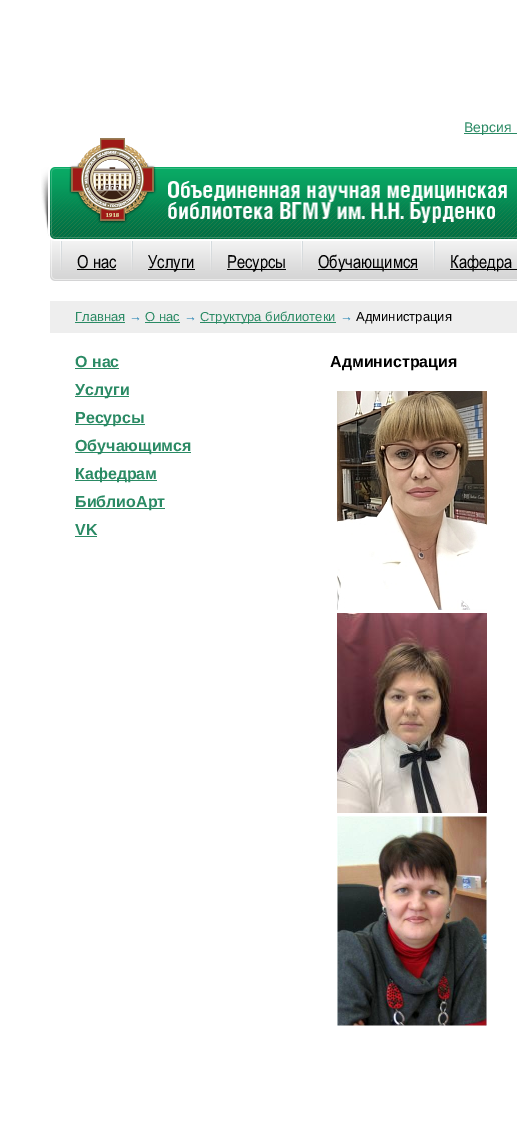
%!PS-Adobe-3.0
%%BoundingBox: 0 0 517 1146
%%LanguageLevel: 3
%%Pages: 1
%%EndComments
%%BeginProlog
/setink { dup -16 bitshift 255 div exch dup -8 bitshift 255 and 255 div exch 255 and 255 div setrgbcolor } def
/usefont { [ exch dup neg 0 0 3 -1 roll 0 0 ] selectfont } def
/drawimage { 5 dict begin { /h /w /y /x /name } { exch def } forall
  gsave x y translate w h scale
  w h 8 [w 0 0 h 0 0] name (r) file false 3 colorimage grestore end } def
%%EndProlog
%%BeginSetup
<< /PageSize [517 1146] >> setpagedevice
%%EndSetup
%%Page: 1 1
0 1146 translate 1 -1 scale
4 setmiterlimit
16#FFFFFF setink
0 0 517 1146 rectfill
16#2A8A64 setink
464 133 53 1 rectfill
/LiberationSans-Regular 14 usefont
464 132 moveto (Версия) show
(img4.raw) 50 239 467 42 drawimage
(img1.raw) 41 167 476 74 drawimage
(img2.raw) 69 138 88 86 drawimage
(img3.raw) 168 181 339 42 drawimage
(img5.raw) 60 241 2 29 drawimage
/Arial-Regular 18 usefont
16#000000 setink
77 268 moveto (О нас) show
77 269 39 1 rectfill
(img5.raw) 131 241 2 29 drawimage
148 269 47 1 rectfill
148 268 moveto (Услуги) show
(img5.raw) 210 241 2 29 drawimage
227 269 59 1 rectfill
227 268 moveto (Ресурсы) show
(img5.raw) 301 241 2 29 drawimage
318 269 100 1 rectfill
318 268 moveto (Обучающимся) show
(img5.raw) 433 241 2 29 drawimage
450 269 67 1 rectfill
450 268 moveto (Кафедра) show
16#EEEEEE setink
50 301 467 32 rectfill
/LiberationSans-Regular 13 usefont
16#2A8A64 setink
75 321 moveto (Главная) show
75 322 50 1 rectfill
16#1B7EB1 setink
129 321 moveto (→) show
16#2A8A64 setink
145 321 moveto (О нас) show
145 322 35 1 rectfill
16#1B7EB1 setink
184 321 moveto (→) show
16#2A8A64 setink
200 322 136 1 rectfill
200 321 moveto (Структура библиотеки) show
16#1B7EB1 setink
340 321 moveto (→) show
16#000000 setink
356 321 moveto (Администрация) show
/LiberationSans-Bold 16 usefont
16#2A8A64 setink
75 367 moveto (О нас) show
75 368 44 1 rectfill
75 396 54 1 rectfill
75 395 moveto (Услуги) show
75 424 70 1 rectfill
75 423 moveto (Ресурсы) show
75 452 116 1 rectfill
75 451 moveto (Обучающимся) show
75 480 82 1 rectfill
75 479 moveto (Кафедрам) show
75 508 90 1 rectfill
75 507 moveto (БиблиоАрт) show
75 535 moveto (VK) show
75 536 22 1 rectfill
16#000000 setink
330 367 moveto (Администрация) show
(img6.raw) 337 391 150 219 drawimage
(img7.raw) 337 613 150 200 drawimage
(img8.raw) 337 816 150 210 drawimage
showpage
%%EOF
